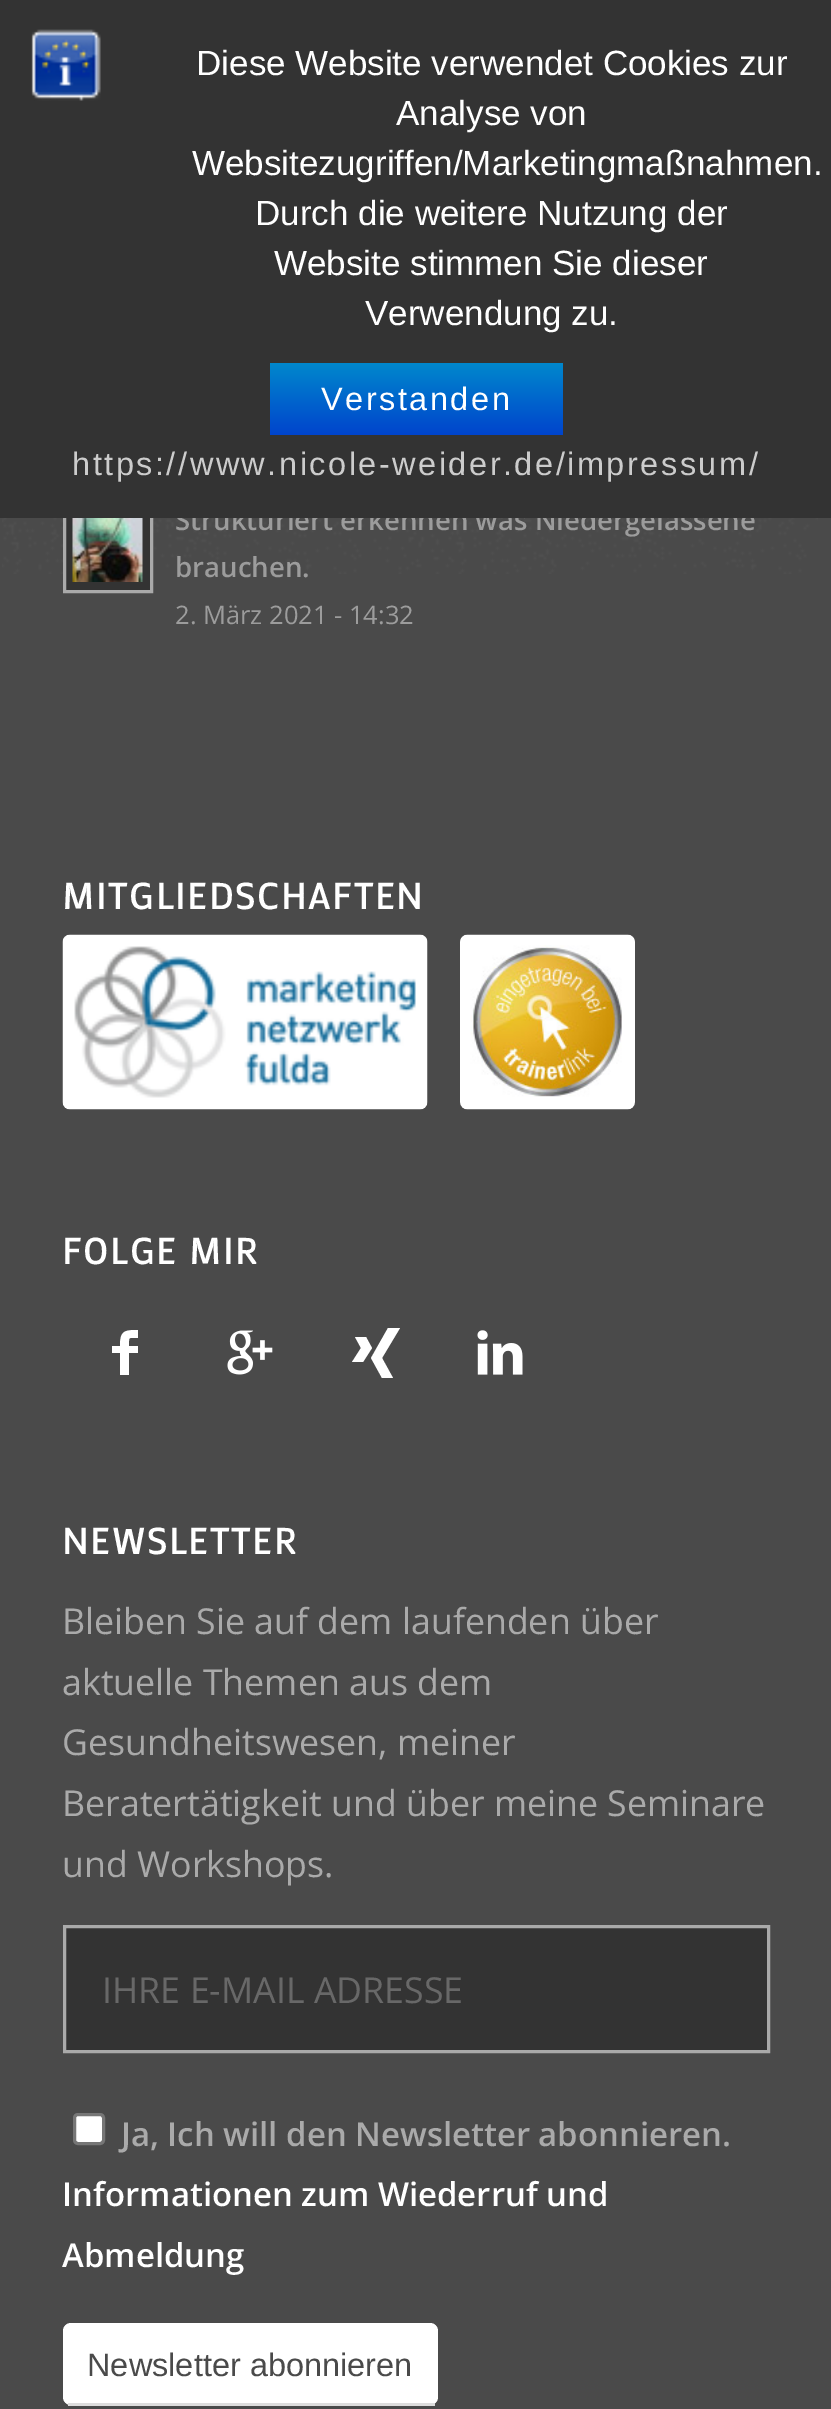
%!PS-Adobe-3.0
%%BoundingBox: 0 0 831 2409
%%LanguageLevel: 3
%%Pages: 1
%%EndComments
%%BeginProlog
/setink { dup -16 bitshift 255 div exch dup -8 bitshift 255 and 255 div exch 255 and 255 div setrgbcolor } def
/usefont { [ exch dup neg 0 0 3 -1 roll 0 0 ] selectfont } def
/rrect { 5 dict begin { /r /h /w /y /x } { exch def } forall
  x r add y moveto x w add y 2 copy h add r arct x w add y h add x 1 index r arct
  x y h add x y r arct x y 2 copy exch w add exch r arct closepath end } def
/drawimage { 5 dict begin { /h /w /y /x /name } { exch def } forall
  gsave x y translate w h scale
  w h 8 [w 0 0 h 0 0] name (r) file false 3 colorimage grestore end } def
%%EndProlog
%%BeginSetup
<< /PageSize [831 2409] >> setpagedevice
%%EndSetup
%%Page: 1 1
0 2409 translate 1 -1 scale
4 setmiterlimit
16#4A4A4A setink
0 0 831 2409 rectfill
(img2.raw) 2 518 816 56 drawimage
16#333333 setink
66 518 84 72 rectfill
16#AAAAAA setink
3 setlinewidth
64.5 504.5 87 87 rectstroke
/OpenSans-SemiBold 27.6 usefont
16#9C9C9C setink
175 530 moveto (Strukturiert erkennen was Niedergelassene) show
16#333333 setink
0 0 831 518 rectfill
(img1.raw) 31 29 70 72 drawimage
/LiberationSans-Regular 35 usefont
16#FFFFFF setink
[
    [(Diese Website verwendet Cookies zur) 196 75]
    [(Analyse von) 396 125]
    [(Websitezugriffen/Marketingmaßnahmen.) 192 175]
    [(Durch die weitere Nutzung der) 255 225]
    [(Website stimmen Sie dieser) 274 275]
    [(Verwendung zu.) 365 325]
] { aload pop moveto show } forall
gsave 270 363 moveto 563 363 lineto 563 435 lineto 270 435 lineto closepath clip newpath
<< /ShadingType 2 /ColorSpace /DeviceRGB /Coords [416 363 416 435] /Extend [true true] /Function << /FunctionType 2 /Domain [0 1] /C0 [0 0.533 0.8] /C1 [0 0.267 0.8] /N 1 >> >> shfill grestore
/LiberationSans-Regular 32.5 usefont
321 410 moveto 2.5 0 (Verstanden) ashow
16#CCCCCC setink
72 475 moveto 2.5 0 (https://www.nicole-weider.de/impressum/) ashow
(img3.raw) 72 518 71 64 drawimage
/OpenSans-SemiBold 27.6 usefont
16#9C9C9C setink
175 577 moveto (brauchen.) show
/OpenSans-Regular 25.5 usefont
175 624 moveto (2. März 2021 - 14:32) show
/Mako-Bold 35.75 usefont
16#FFFFFF setink
62 909 moveto 2.5 0 (MITGLIEDSCHAFTEN) ashow
(img4.raw) 62 934 366 176 drawimage
(img5.raw) 460 934 175 176 drawimage
62 1264 moveto 2.5 0 (FOLGE MIR) ashow
138 1338 moveto 128 1338 129 1336 129 1346 curveto 138 1346 lineto 138 1353 lineto 129 1353 lineto 129 1375 lineto 120 1375 lineto 120 1353 lineto 112 1353 lineto 112 1346 lineto 120 1346 lineto 120 1331 124 1330 138 1330 curveto closepath fill
(img6.raw) 227 1330 46 45 drawimage
352 1362 moveto 363 1362 lineto 372 1348 lineto 366 1337 lineto 355 1337 lineto 361 1348 lineto closepath 371 1358 moveto 388 1328 lineto 400 1328 lineto 382 1358 lineto 393 1378 lineto 382 1378 lineto closepath fill
(img7.raw) 477 1330 46 45 drawimage
62 1554 moveto 2.5 0 (NEWSLETTER) ashow
/OpenSans-Regular 35.75 usefont
16#AAAAAA setink
[
    [(Bleiben Sie auf dem laufenden über) 62 1634]
    [(aktuelle Themen aus dem) 62 1695]
    [(Gesundheitswesen, meiner) 62 1755]
    [(Beratertätigkeit und über meine Seminare) 62 1816]
    [(und Workshops.) 62 1877]
] { aload pop moveto show } forall
16#333333 setink
64.5 1926.5 moveto 768.5 1926.5 lineto 768.5 2051.5 lineto 64.5 2051.5 lineto closepath gsave fill grestore
16#AAAAAA setink
stroke
16#686868 setink
102 2003 moveto (IHRE E-MAIL ADRESSE) show
16#FFFFFF setink
74.5 2114.5 29 29 3.5 rrect gsave fill grestore
16#767676 setink
stroke
/OpenSans-SemiBold 32.9 usefont
16#AAAAAA setink
121 2146 moveto (Ja, Ich will den Newsletter abonnieren.) show
16#FFFFFF setink
62 2206 moveto (Informationen zum Wiederruf und) show
62 2267 moveto (Abmeldung) show
63 2323 375 82 8 rrect fill
16#DDDDDD setink
68 2403 367 3 rectfill
/LiberationSans-Regular 32.5 usefont
16#4A4A4A setink
87 2376 moveto (Newsletter abonnieren) show
showpage
%%EOF
